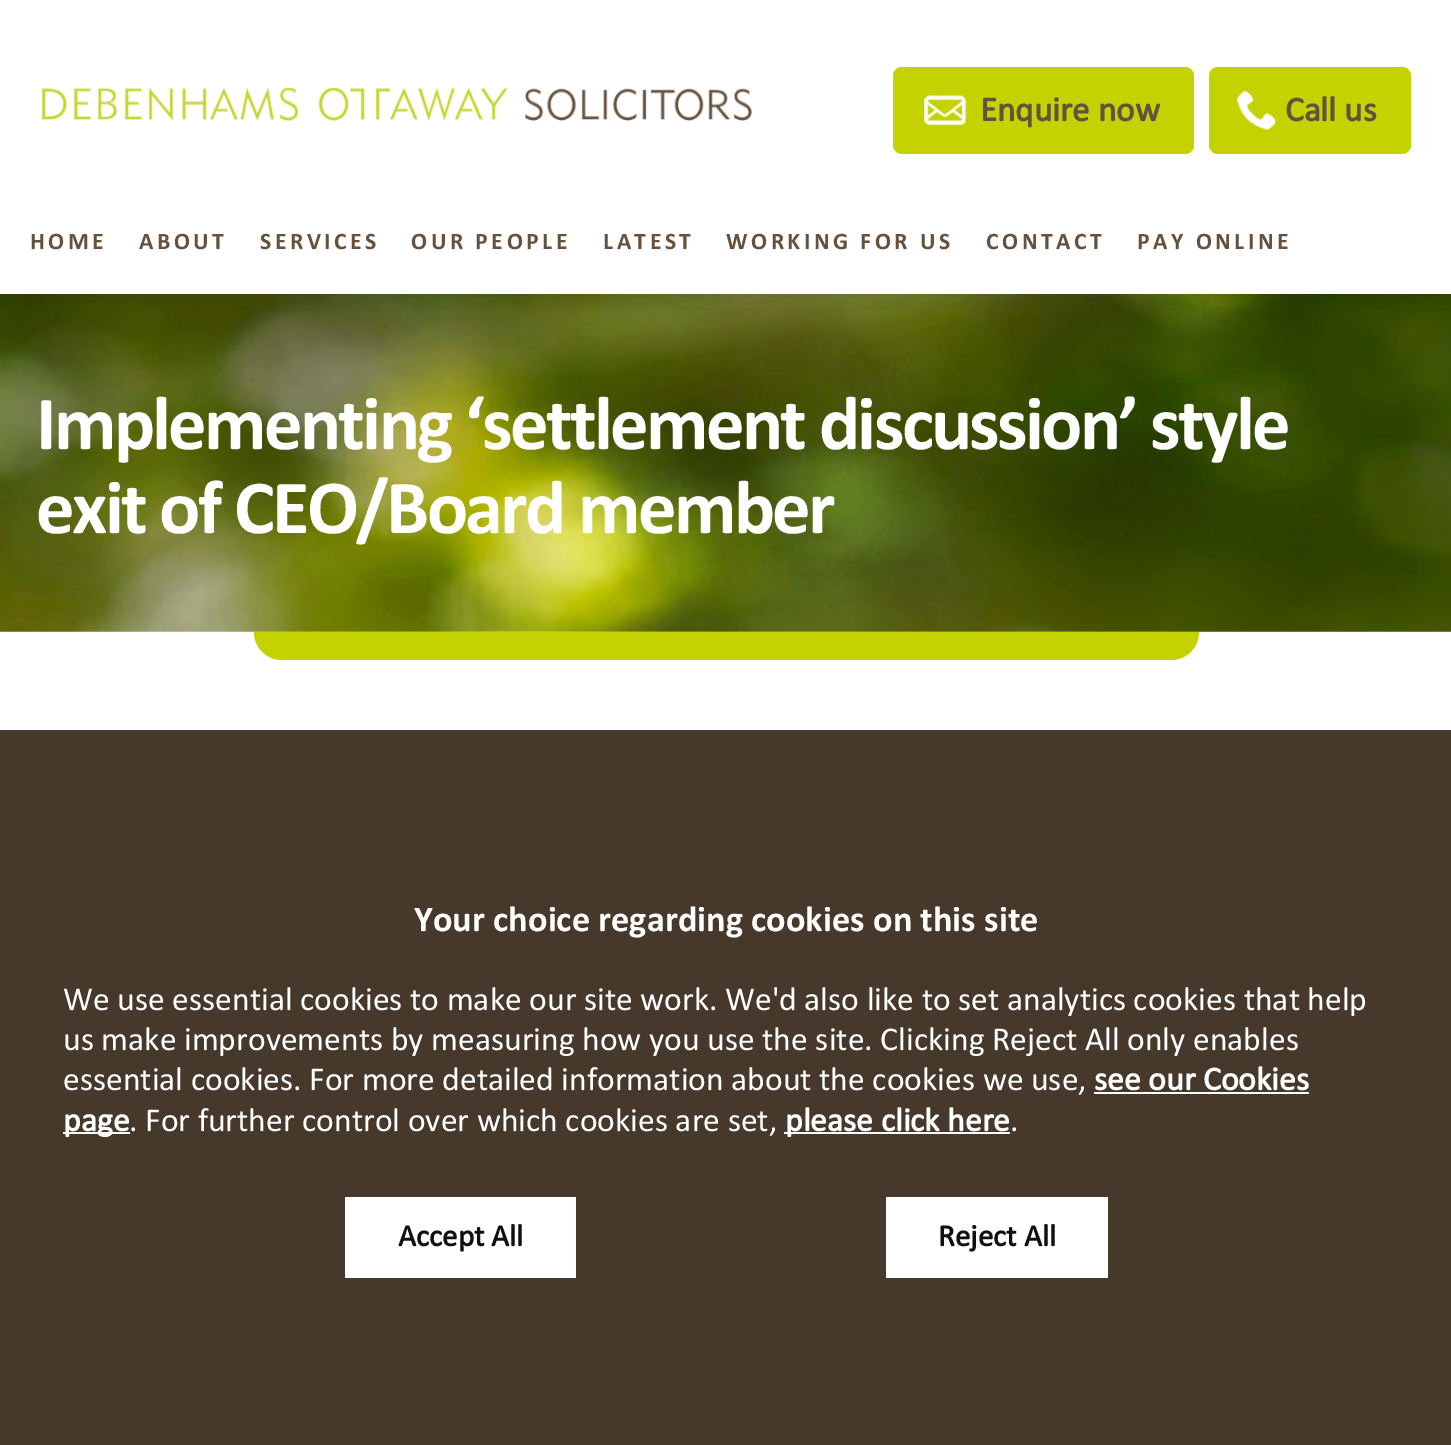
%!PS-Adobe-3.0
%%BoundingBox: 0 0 1451 1445
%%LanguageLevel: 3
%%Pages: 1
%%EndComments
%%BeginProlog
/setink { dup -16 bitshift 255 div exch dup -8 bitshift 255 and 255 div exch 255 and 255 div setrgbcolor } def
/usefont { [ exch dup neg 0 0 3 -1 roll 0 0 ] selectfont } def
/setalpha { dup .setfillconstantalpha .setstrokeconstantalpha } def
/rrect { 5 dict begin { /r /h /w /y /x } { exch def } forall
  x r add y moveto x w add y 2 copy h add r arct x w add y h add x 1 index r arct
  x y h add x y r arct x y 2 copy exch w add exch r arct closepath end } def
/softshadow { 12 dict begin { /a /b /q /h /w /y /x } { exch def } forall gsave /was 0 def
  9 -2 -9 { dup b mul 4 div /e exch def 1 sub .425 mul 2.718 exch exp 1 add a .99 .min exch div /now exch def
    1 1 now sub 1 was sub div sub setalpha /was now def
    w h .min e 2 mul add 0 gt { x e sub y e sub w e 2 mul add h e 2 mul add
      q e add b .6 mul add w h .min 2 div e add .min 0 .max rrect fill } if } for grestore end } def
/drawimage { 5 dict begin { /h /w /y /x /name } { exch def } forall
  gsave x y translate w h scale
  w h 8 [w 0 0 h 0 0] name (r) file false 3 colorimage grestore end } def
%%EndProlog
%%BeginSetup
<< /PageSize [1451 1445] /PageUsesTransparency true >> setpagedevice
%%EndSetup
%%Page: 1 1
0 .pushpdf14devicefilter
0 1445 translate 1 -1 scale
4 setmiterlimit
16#FFFFFF setink
0 0 1451 1445 rectfill
(img4.raw) 0 294 1451 338 drawimage
gsave
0 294 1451 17 rectclip
16#111111 setink
0 0 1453 294 0 13 0.2 softshadow
grestore
(img1.raw) 42 88 710 33 drawimage
16#C4D201 setink
893 67 301 87 9 rrect fill
(img2.raw) 924 95 43 31 drawimage
/Calibri-Bold 35 usefont
16#66513D setink
980 121 moveto (Enquire now) show
16#C4D201 setink
1209 67 202 87 9 rrect fill
(img3.raw) 1237 90 39 40 drawimage
16#66513D setink
1285 121 moveto (Call us) show
/Calibri-Regular 23.75 usefont
30 249 moveto 3.5 0 (HOME) ashow
139 249 moveto 3.5 0 (ABOUT) ashow
260 249 moveto 3.5 0 (SERVICES) ashow
411 249 moveto 3.5 0 (OUR PEOPLE) ashow
603 249 moveto 3.5 0 (LATEST) ashow
726 249 moveto 3.5 0 (WORKING FOR US) ashow
986 249 moveto 3.5 0 (CONTACT) ashow
1137 249 moveto 3.5 0 (PAY ONLINE) ashow
/Calibri-Regular 77 usefont
16#FFFFFF setink
36 449 moveto -2.8 0 (Implementing ‘settlement discussion’ style) ashow
36 533 moveto -2.8 0 (exit of CEO/Board member) ashow
16#C4D201 setink
254 632 moveto 1199 632 lineto 1199 647.5 1186.5 660 1171 660 curveto 282 660 lineto 266.5 660 254 647.5 254 632 curveto closepath fill
16#46382A setink
0 730 1451 715 rectfill
/Calibri-Regular 36.4 usefont
16#FFFFFF setink
414 931 moveto (Your choice regarding cookies on this site) show
/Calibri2-Regular 33.6 usefont
[
    [(We use essential cookies to make our site work. We'd also like to set analytics cookies that help) 63 1010]
    [(us make improvements by measuring how you use the site. Clicking Reject All only enables) 63 1050]
    [(essential cookies. For more detailed information about the cookies we use,) 63 1090]
] { aload pop moveto show } forall
/Calibri-Bold 33.6 usefont
1094 1090 moveto (see our Cookies) show
1094 1092 215 2 rectfill
63 1132 67 2 rectfill
63 1131 moveto (page) show
/Calibri2-Regular 33.6 usefont
129 1131 moveto (. For further control over which cookies are set,) show
784 1132 226 2 rectfill
/Calibri-Bold 33.6 usefont
785 1131 moveto (please click here) show
/Calibri2-Regular 33.6 usefont
1010 1131 moveto (.) show
345 1197 231 81 rectfill
/Calibri-Bold 31 usefont
16#111111 setink
398 1246 moveto (Accept All) show
16#FFFFFF setink
886 1197 222 81 rectfill
16#111111 setink
938 1246 moveto (Reject All) show
.poppdf14devicefilter showpage
%%EOF
